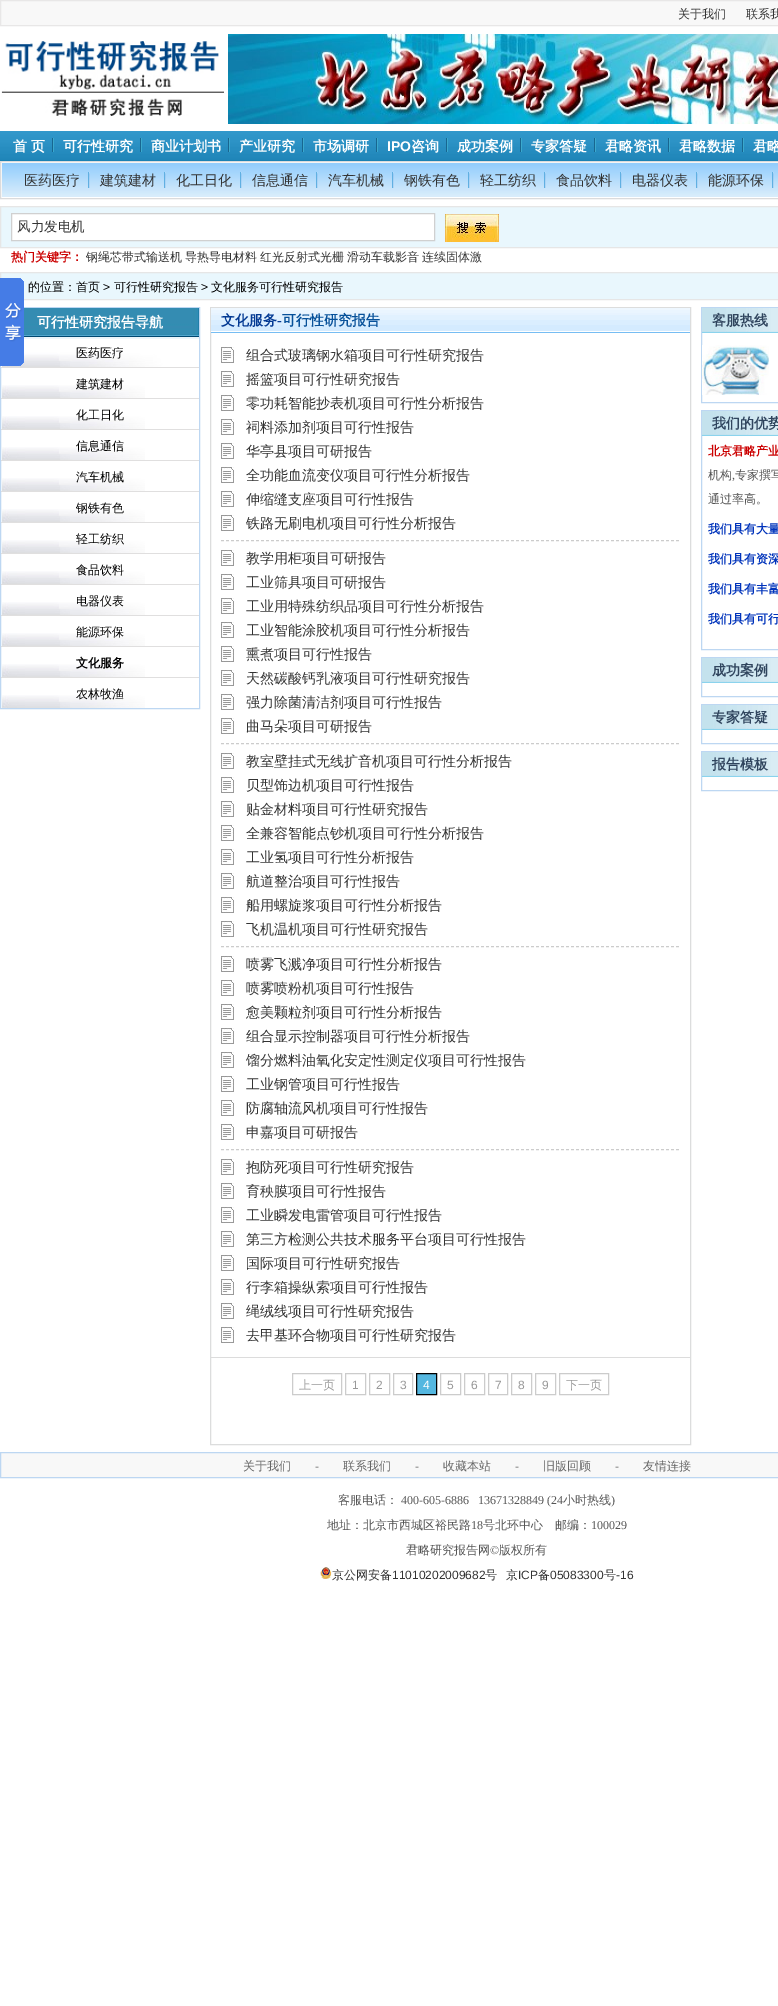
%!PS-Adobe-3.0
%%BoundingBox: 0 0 778 2006
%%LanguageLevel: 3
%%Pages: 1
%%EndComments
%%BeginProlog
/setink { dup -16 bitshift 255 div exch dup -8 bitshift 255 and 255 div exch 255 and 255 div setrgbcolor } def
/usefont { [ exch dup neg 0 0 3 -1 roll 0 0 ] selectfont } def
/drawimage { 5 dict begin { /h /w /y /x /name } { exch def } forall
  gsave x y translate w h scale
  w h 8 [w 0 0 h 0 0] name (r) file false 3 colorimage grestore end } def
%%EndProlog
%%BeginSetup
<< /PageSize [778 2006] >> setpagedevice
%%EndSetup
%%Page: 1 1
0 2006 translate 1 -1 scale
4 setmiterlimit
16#FFFFFF setink
0 0 778 2006 rectfill
16#F8F8F8 setink
0.5 0.5 moveto 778.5 0.5 lineto 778.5 25.5 lineto 0.5 25.5 lineto closepath gsave fill grestore
16#E8E7E7 setink
stroke
/WenQuanYiZenHei-Medium 12 usefont
16#333333 setink
678 18 moveto (关于我们) show
746 18 moveto (联系我) show
(img1.raw) 1 41 223 75 drawimage
(img2.raw) 228 34 550 90 drawimage
16#1A81B3 setink
0 160 778 1 rectfill
(img3.raw) 0 131 778 29 drawimage
(img4.raw) 52 138 2 14 drawimage
/WenQuanYiZenHei-Bold 14 usefont
16#FFFFFF setink
13 151 moveto (首) show
31 151 moveto (页) show
(img4.raw) 140 138 2 14 drawimage
63 151 moveto (可行性研究) show
(img4.raw) 228 138 2 14 drawimage
151 151 moveto (商业计划书) show
(img4.raw) 302 138 2 14 drawimage
239 151 moveto (产业研究) show
(img4.raw) 376 138 2 14 drawimage
313 151 moveto (市场调研) show
(img4.raw) 446 138 2 14 drawimage
/LiberationSans-Bold 14 usefont
387 151 moveto (IPO) show
/WenQuanYiZenHei-Bold 14 usefont
411 151 moveto (咨询) show
(img4.raw) 520 138 2 14 drawimage
457 151 moveto (成功案例) show
(img4.raw) 594 138 2 14 drawimage
531 151 moveto (专家答疑) show
(img4.raw) 668 138 2 14 drawimage
605 151 moveto (君略资讯) show
(img4.raw) 742 138 2 14 drawimage
679 151 moveto (君略数据) show
753 151 moveto (君略) show
16#DBDBDC setink
0.5 161.5 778 37 rectstroke
(img5.raw) 2 163 776 34 drawimage
(img6.raw) 88 172 2 16 drawimage
/WenQuanYiZenHei-Medium 14 usefont
16#333333 setink
24 185 moveto (医药医疗) show
(img6.raw) 164 172 2 16 drawimage
100 185 moveto (建筑建材) show
(img6.raw) 240 172 2 16 drawimage
176 185 moveto (化工日化) show
(img6.raw) 316 172 2 16 drawimage
252 185 moveto (信息通信) show
(img6.raw) 392 172 2 16 drawimage
328 185 moveto (汽车机械) show
(img6.raw) 468 172 2 16 drawimage
404 185 moveto (钢铁有色) show
(img6.raw) 544 172 2 16 drawimage
480 185 moveto (轻工纺织) show
(img6.raw) 620 172 2 16 drawimage
556 185 moveto (食品饮料) show
(img6.raw) 696 172 2 16 drawimage
632 185 moveto (电器仪表) show
(img6.raw) 772 172 2 16 drawimage
708 185 moveto (能源环保) show
16#E9F7FD setink
0.5 206.5 moveto 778.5 206.5 lineto 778.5 247.5 lineto 0.5 247.5 lineto closepath gsave fill grestore
16#E6E6E6 setink
stroke
16#FFFFFF setink
11.5 213.5 moveto 434.5 213.5 lineto 434.5 240.5 lineto 11.5 240.5 lineto closepath gsave fill grestore
16#D0D0D0 setink
stroke
/WenQuanYiZenHei-Medium 13.5 usefont
16#333333 setink
17 231 moveto (风力发电机) show
(img7.raw) 445 214 54 28 drawimage
/WenQuanYiZenHei-Bold 12 usefont
16#CC0000 setink
11 261 moveto (热门关键字：) show
/WenQuanYiZenHei-Medium 12 usefont
16#333333 setink
[
    [(钢绳芯带式输送机) 86 261]
    [(导热导电材料) 185 261]
    [(红光反射式光栅) 260 261]
    [(滑动车载影音) 347 261]
    [(连续固体激) 422 261]
] { aload pop moveto show } forall
16#E9F7FD setink
0.5 272.5 moveto 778.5 272.5 lineto 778.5 299.5 lineto 0.5 299.5 lineto closepath gsave fill grestore
16#E6E6E6 setink
stroke
(img9.raw) 24 337 175 2 drawimage
16#BDD7F2 setink
0.5 307.5 199 401 rectstroke
(img11.raw) 1 339 198 28 drawimage
(img8.raw) 0 278 24 88 drawimage
16#000000 setink
28 291 moveto (的位置：首页) show
/LiberationSans-Regular 12 usefont
103 291 moveto (>) show
/WenQuanYiZenHei-Medium 12 usefont
114 291 moveto (可行性研究报告) show
/LiberationSans-Regular 12 usefont
201 291 moveto (>) show
/WenQuanYiZenHei-Medium 12 usefont
211 291 moveto (文化服务可行性研究报告) show
(img10.raw) 24 308 175 29 drawimage
/WenQuanYiZenHei-Bold 14 usefont
16#FFFFFF setink
37 327 moveto (可行性研究报告导航) show
16#E0DFDF setink
1 367 198 1 rectfill
/WenQuanYiZenHei-Medium 12 usefont
16#000000 setink
76 357 moveto (医药医疗) show
(img12.raw) 2 385 143 13 drawimage
16#E0DFDF setink
1 398 198 1 rectfill
16#000000 setink
76 388 moveto (建筑建材) show
(img12.raw) 2 416 143 13 drawimage
16#E0DFDF setink
1 429 198 1 rectfill
16#000000 setink
76 419 moveto (化工日化) show
(img12.raw) 2 447 143 13 drawimage
16#E0DFDF setink
1 460 198 1 rectfill
16#000000 setink
76 450 moveto (信息通信) show
(img12.raw) 2 478 143 13 drawimage
16#E0DFDF setink
1 491 198 1 rectfill
16#000000 setink
76 481 moveto (汽车机械) show
(img12.raw) 2 509 143 13 drawimage
16#E0DFDF setink
1 522 198 1 rectfill
16#000000 setink
76 512 moveto (钢铁有色) show
(img12.raw) 2 540 143 13 drawimage
16#E0DFDF setink
1 553 198 1 rectfill
16#000000 setink
76 543 moveto (轻工纺织) show
(img12.raw) 2 571 143 13 drawimage
16#E0DFDF setink
1 584 198 1 rectfill
16#000000 setink
76 574 moveto (食品饮料) show
(img12.raw) 2 602 143 13 drawimage
16#E0DFDF setink
1 615 198 1 rectfill
16#000000 setink
76 605 moveto (电器仪表) show
(img12.raw) 2 633 143 13 drawimage
16#E0DFDF setink
1 646 198 1 rectfill
16#000000 setink
76 636 moveto (能源环保) show
(img12.raw) 2 664 143 13 drawimage
16#E0DFDF setink
1 677 198 1 rectfill
/WenQuanYiZenHei-Bold 12 usefont
16#000000 setink
76 667 moveto (文化服务) show
(img12.raw) 2 695 143 13 drawimage
/WenQuanYiZenHei-Medium 12 usefont
76 698 moveto (农林牧渔) show
16#DCDDDD setink
210.5 307.5 480 1137 rectstroke
(img13.raw) 211 308 479 25 drawimage
/WenQuanYiZenHei-Bold 14 usefont
16#033993 setink
221 325 moveto (文化服务) show
/LiberationSerif-Bold 14 usefont
277 325 moveto (-) show
/WenQuanYiZenHei-Bold 14 usefont
16#07519A setink
282 325 moveto (可行性研究报告) show
16#DCDCDC setink
211 1357 479 1 rectfill
(img14.raw) 221 347 13 16 drawimage
/WenQuanYiZenHei-Medium 14 usefont
16#333333 setink
246 360 moveto (组合式玻璃钢水箱项目可行性研究报告) show
(img14.raw) 221 371 13 16 drawimage
246 384 moveto (摇篮项目可行性研究报告) show
(img14.raw) 221 395 13 16 drawimage
246 408 moveto (零功耗智能抄表机项目可行性分析报告) show
(img14.raw) 221 419 13 16 drawimage
246 432 moveto (祠料添加剂项目可行性报告) show
(img14.raw) 221 443 13 16 drawimage
246 456 moveto (华亭县项目可研报告) show
(img14.raw) 221 467 13 16 drawimage
246 480 moveto (全功能血流变仪项目可行性分析报告) show
(img14.raw) 221 491 13 16 drawimage
246 504 moveto (伸缩缝支座项目可行性报告) show
(img14.raw) 221 515 13 16 drawimage
246 528 moveto (铁路无刷电机项目可行性分析报告) show
16#CCCCCC setink
[3 2] 0 setdash
221 540.5 moveto 679 540.5 lineto stroke
(img14.raw) 221 550 13 16 drawimage
16#333333 setink
246 563 moveto (教学用柜项目可研报告) show
(img14.raw) 221 574 13 16 drawimage
246 587 moveto (工业筛具项目可研报告) show
(img14.raw) 221 598 13 16 drawimage
246 611 moveto (工业用特殊纺织品项目可行性分析报告) show
(img14.raw) 221 622 13 16 drawimage
246 635 moveto (工业智能涂胶机项目可行性分析报告) show
(img14.raw) 221 646 13 16 drawimage
246 659 moveto (熏煮项目可行性报告) show
(img14.raw) 221 670 13 16 drawimage
246 683 moveto (天然碳酸钙乳液项目可行性研究报告) show
(img14.raw) 221 694 13 16 drawimage
246 707 moveto (强力除菌清洁剂项目可行性报告) show
(img14.raw) 221 718 13 16 drawimage
246 731 moveto (曲马朵项目可研报告) show
16#CCCCCC setink
221 743.5 moveto 679 743.5 lineto stroke
(img14.raw) 221 753 13 16 drawimage
16#333333 setink
246 766 moveto (教室壁挂式无线扩音机项目可行性分析报告) show
(img14.raw) 221 777 13 16 drawimage
246 790 moveto (贝型饰边机项目可行性报告) show
(img14.raw) 221 801 13 16 drawimage
246 814 moveto (贴金材料项目可行性研究报告) show
(img14.raw) 221 825 13 16 drawimage
246 838 moveto (全兼容智能点钞机项目可行性分析报告) show
(img14.raw) 221 849 13 16 drawimage
246 862 moveto (工业氢项目可行性分析报告) show
(img14.raw) 221 873 13 16 drawimage
246 886 moveto (航道整治项目可行性报告) show
(img14.raw) 221 897 13 16 drawimage
246 910 moveto (船用螺旋浆项目可行性分析报告) show
(img14.raw) 221 921 13 16 drawimage
246 934 moveto (飞机温机项目可行性研究报告) show
16#CCCCCC setink
221 946.5 moveto 679 946.5 lineto stroke
(img14.raw) 221 956 13 16 drawimage
16#333333 setink
246 969 moveto (喷雾飞溅净项目可行性分析报告) show
(img14.raw) 221 980 13 16 drawimage
246 993 moveto (喷雾喷粉机项目可行性报告) show
(img14.raw) 221 1004 13 16 drawimage
246 1017 moveto (愈美颗粒剂项目可行性分析报告) show
(img14.raw) 221 1028 13 16 drawimage
246 1041 moveto (组合显示控制器项目可行性分析报告) show
(img14.raw) 221 1052 13 16 drawimage
246 1065 moveto (馏分燃料油氧化安定性测定仪项目可行性报告) show
(img14.raw) 221 1076 13 16 drawimage
246 1089 moveto (工业钢管项目可行性报告) show
(img14.raw) 221 1100 13 16 drawimage
246 1113 moveto (防腐轴流风机项目可行性报告) show
(img14.raw) 221 1124 13 16 drawimage
246 1137 moveto (申嘉项目可研报告) show
16#CCCCCC setink
221 1149.5 moveto 679 1149.5 lineto stroke
(img14.raw) 221 1159 13 16 drawimage
16#333333 setink
246 1172 moveto (抱防死项目可行性研究报告) show
(img14.raw) 221 1183 13 16 drawimage
246 1196 moveto (育秧膜项目可行性报告) show
(img14.raw) 221 1207 13 16 drawimage
246 1220 moveto (工业瞬发电雷管项目可行性报告) show
(img14.raw) 221 1231 13 16 drawimage
246 1244 moveto (第三方检测公共技术服务平台项目可行性报告) show
(img14.raw) 221 1255 13 16 drawimage
246 1268 moveto (国际项目可行性研究报告) show
(img14.raw) 221 1279 13 16 drawimage
246 1292 moveto (行李箱操纵索项目可行性报告) show
(img14.raw) 221 1303 13 16 drawimage
246 1316 moveto (绳绒线项目可行性研究报告) show
(img14.raw) 221 1327 13 16 drawimage
246 1340 moveto (去甲基环合物项目可行性研究报告) show
16#CCCCCC setink
[] 0 setdash
292.5 1373.5 49 21 rectstroke
/WenQuanYiZenHei-Medium 12 usefont
16#999999 setink
299 1389 moveto (上一页) show
16#CCCCCC setink
345.5 1373.5 20 21 rectstroke
/LiberationSans-Regular 12 usefont
16#999999 setink
352 1389 moveto (1) show
16#CCCCCC setink
369.5 1373.5 20 21 rectstroke
16#999999 setink
376 1389 moveto (2) show
16#CCCCCC setink
393.5 1373.5 19 21 rectstroke
16#999999 setink
400 1389 moveto (3) show
16#54B7E0 setink
416.5 1373.5 moveto 436.5 1373.5 lineto 436.5 1394.5 lineto 416.5 1394.5 lineto closepath gsave fill grestore
16#000000 setink
stroke
16#FFFFFF setink
423 1389 moveto (4) show
16#CCCCCC setink
440.5 1373.5 20 21 rectstroke
16#999999 setink
447 1389 moveto (5) show
16#CCCCCC setink
464.5 1373.5 20 21 rectstroke
16#999999 setink
471 1389 moveto (6) show
16#CCCCCC setink
488.5 1373.5 19 21 rectstroke
16#999999 setink
495 1389 moveto (7) show
16#CCCCCC setink
511.5 1373.5 20 21 rectstroke
16#999999 setink
518 1389 moveto (8) show
16#CCCCCC setink
535.5 1373.5 20 21 rectstroke
16#999999 setink
542 1389 moveto (9) show
16#CCCCCC setink
559.5 1373.5 49 21 rectstroke
/WenQuanYiZenHei-Medium 12 usefont
16#999999 setink
566 1389 moveto (下一页) show
16#BDD7F2 setink
701.5 307.5 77 95 rectstroke
(img15.raw) 702 308 76 25 drawimage
/WenQuanYiZenHei-Bold 14 usefont
16#30455E setink
712 325 moveto (客服热线) show
(img16.raw) 702 345 67 50 drawimage
16#BDD7F2 setink
701.5 410.5 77 239 rectstroke
(img15.raw) 702 411 76 25 drawimage
16#30455E setink
712 428 moveto (我们的优势) show
/WenQuanYiZenHei-Bold 12 usefont
16#CC0000 setink
708 455 moveto (北京君略产业) show
/WenQuanYiZenHei-Medium 12 usefont
16#555555 setink
708 479 moveto (机构) show
/LiberationSerif-Regular 12 usefont
732 479 moveto (,) show
/WenQuanYiZenHei-Medium 12 usefont
735 479 moveto (专家撰写) show
708 503 moveto (通过率高。) show
/WenQuanYiZenHei-Bold 12 usefont
16#0033BB setink
[
    [(我们具有大量) 708 533]
    [(我们具有资深) 708 563]
    [(我们具有丰富) 708 593]
    [(我们具有可行) 708 623]
] { aload pop moveto show } forall
16#BDD7F2 setink
701.5 657.5 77 39 rectstroke
(img15.raw) 702 658 76 25 drawimage
/WenQuanYiZenHei-Bold 14 usefont
16#30455E setink
712 675 moveto (成功案例) show
16#BDD7F2 setink
701.5 704.5 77 39 rectstroke
(img15.raw) 702 705 76 25 drawimage
16#30455E setink
712 722 moveto (专家答疑) show
16#BDD7F2 setink
701.5 751.5 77 39 rectstroke
(img15.raw) 702 752 76 25 drawimage
16#30455E setink
712 769 moveto (报告模板) show
16#F8F8F8 setink
0.5 1452.5 moveto 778.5 1452.5 lineto 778.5 1477.5 lineto 0.5 1477.5 lineto closepath gsave fill grestore
16#BDD7F2 setink
stroke
/WenQuanYiZenHei-Medium 12 usefont
16#666666 setink
243 1470 moveto (关于我们) show
/LiberationSerif-Regular 12 usefont
315 1470 moveto (-) show
/WenQuanYiZenHei-Medium 12 usefont
343 1470 moveto (联系我们) show
/LiberationSerif-Regular 12 usefont
415 1470 moveto (-) show
/WenQuanYiZenHei-Medium 12 usefont
443 1470 moveto (收藏本站) show
/LiberationSerif-Regular 12 usefont
515 1470 moveto (-) show
/WenQuanYiZenHei-Medium 12 usefont
543 1470 moveto (旧版回顾) show
/LiberationSerif-Regular 12 usefont
615 1470 moveto (-) show
/WenQuanYiZenHei-Medium 12 usefont
643 1470 moveto (友情连接) show
16#555555 setink
338 1504 moveto (客服电话：) show
/LiberationSerif-Regular 12 usefont
401 1504 moveto (400-605-6886   13671328849 \(24) show
/WenQuanYiZenHei-Medium 12 usefont
563 1504 moveto (小时热线) show
/LiberationSerif-Regular 12 usefont
611 1504 moveto (\)) show
/WenQuanYiZenHei-Medium 12 usefont
327 1529 moveto (地址：北京市西城区裕民路) show
/LiberationSerif-Regular 12 usefont
471 1529 moveto (18) show
/WenQuanYiZenHei-Medium 12 usefont
483 1529 moveto (号北环中心　邮编：) show
/LiberationSerif-Regular 12 usefont
591 1529 moveto (100029) show
/WenQuanYiZenHei-Medium 12 usefont
406 1554 moveto (君略研究报告网) show
/LiberationSerif-Regular 12 usefont
490 1554 moveto (©) show
/WenQuanYiZenHei-Medium 12 usefont
499 1554 moveto (版权所有) show
(img17.raw) 320 1567 12 12 drawimage
16#333333 setink
332 1579 moveto (京公网安备) show
/LiberationSans-Regular 12 usefont
392 1579 moveto (11010202009682) show
/WenQuanYiZenHei-Medium 12 usefont
485 1579 moveto (号) show
506 1579 moveto (京) show
/LiberationSans-Regular 12 usefont
518 1579 moveto (ICP) show
/WenQuanYiZenHei-Medium 12 usefont
538 1579 moveto (备) show
/LiberationSans-Regular 12 usefont
550 1579 moveto (05083300) show
/WenQuanYiZenHei-Medium 12 usefont
604 1579 moveto (号) show
/LiberationSans-Regular 12 usefont
616 1579 moveto (-16) show
showpage
%%EOF
